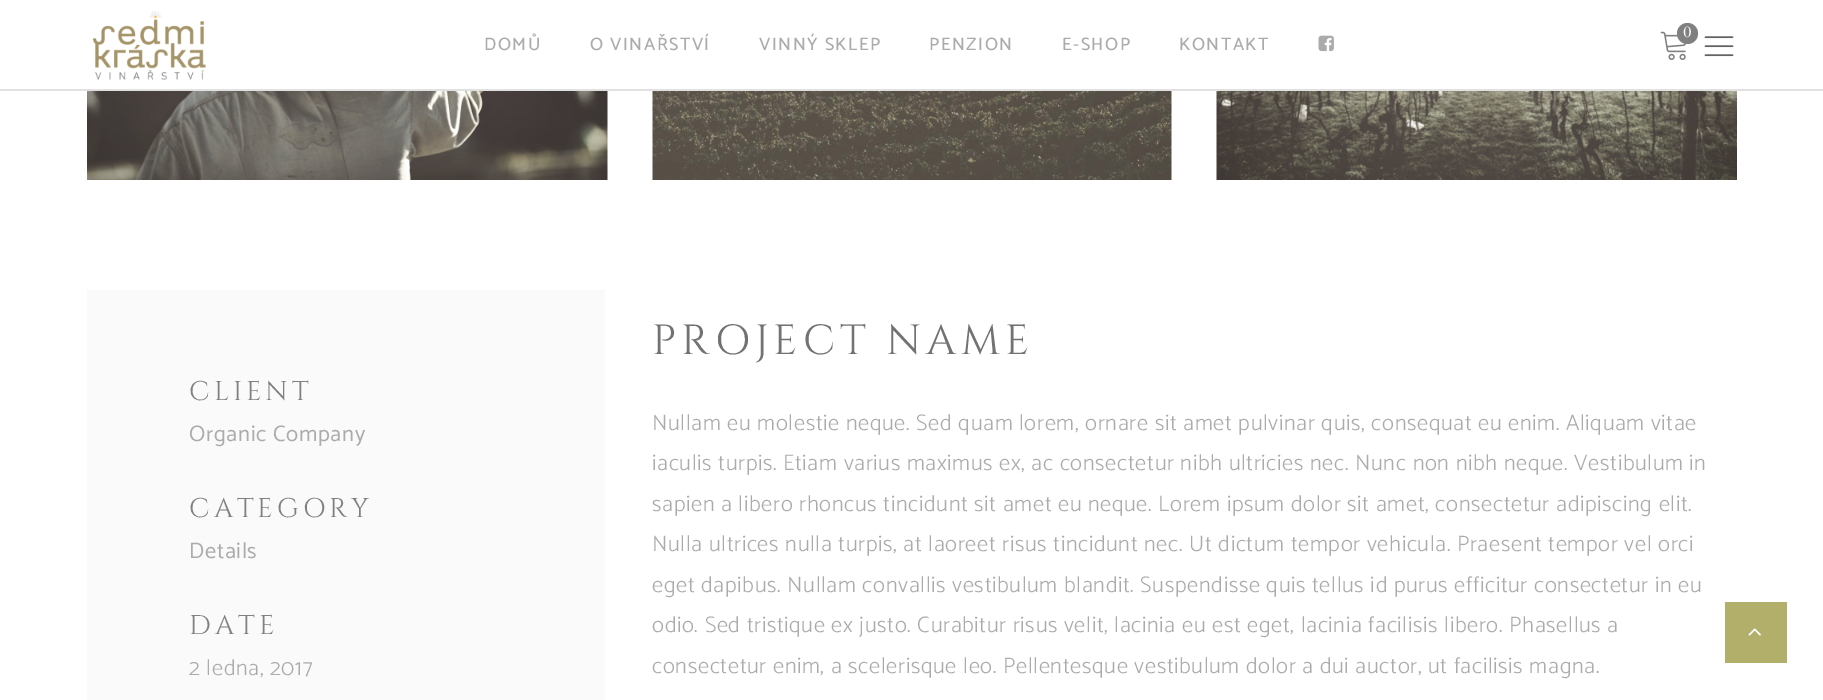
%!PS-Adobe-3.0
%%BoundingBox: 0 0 1823 700
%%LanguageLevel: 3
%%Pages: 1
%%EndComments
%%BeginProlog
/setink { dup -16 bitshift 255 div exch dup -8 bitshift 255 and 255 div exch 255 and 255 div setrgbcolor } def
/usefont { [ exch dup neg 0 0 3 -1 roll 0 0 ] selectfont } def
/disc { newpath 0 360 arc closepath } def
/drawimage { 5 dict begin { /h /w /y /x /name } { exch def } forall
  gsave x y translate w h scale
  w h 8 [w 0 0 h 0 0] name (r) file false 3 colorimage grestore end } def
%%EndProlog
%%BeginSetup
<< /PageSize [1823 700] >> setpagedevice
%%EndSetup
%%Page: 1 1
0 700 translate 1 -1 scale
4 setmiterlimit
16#FFFFFF setink
0 0 1823 700 rectfill
16#E1E1E1 setink
0 89 1823 2 rectfill
(img1.raw) 93 10 113 70 drawimage
/Catamaran-Medium 18 usefont
16#ABABAB setink
484 50 moveto 1.5 0 (DOMŮ) ashow
590 50 moveto 1.5 0 (O VINAŘSTVÍ) ashow
759 50 moveto 1.5 0 (VINNÝ SKLEP) ashow
929 50 moveto 1.5 0 (PENZION) ashow
1062 50 moveto 1.5 0 (E-SHOP) ashow
1179 50 moveto 1.5 0 (KONTAKT) ashow
(img2.raw) 1318 35 16 17 drawimage
(img3.raw) 1660 31 27 29 drawimage
16#808080 setink
1687.5 33.5 10.5 disc fill
/OldStandardTT-Regular 15 usefont
16#FFFFFF setink
1683 37 moveto 0.68 0 (0) ashow
(img4.raw) 1704 36 30 21 drawimage
(img5.raw) 87 91 521 89 drawimage
(img6.raw) 652 91 520 89 drawimage
(img7.raw) 1216 91 521 89 drawimage
16#FAFAFA setink
87 290 518 410 rectfill
/Cinzel-Regular 27 usefont
16#808080 setink
189 400 moveto 4 0 (CLIENT) ashow
/Catamaran-Regular 22.5 usefont
16#ABABAB setink
189 441 moveto 0.68 0 (Organic Company) ashow
/Cinzel-Regular 27 usefont
16#808080 setink
189 517 moveto 4 0 (CATEGORY) ashow
/Catamaran-Regular 22.5 usefont
16#ABABAB setink
189 558 moveto 0.68 0 (Details) ashow
/Cinzel-Regular 27 usefont
16#808080 setink
189 634 moveto 4 0 (DATE) ashow
/Catamaran-Light 22.5 usefont
16#ABABAB setink
189 675 moveto 0.68 0 (2 ledna, 2017) ashow
/Cinzel-Regular 42 usefont
16#737272 setink
652 354 moveto 5 0 (PROJECT NAME) ashow
/Catamaran-Light 22.5 usefont
16#ABABAB setink
652 430 moveto 0.68 0 (Nullam eu molestie neque. Sed quam lorem, ornare sit amet pulvinar quis, consequat eu enim. Aliquam vitae) ashow
652 470 moveto 0.68 0 (iaculis turpis. Etiam varius maximus ex, ac consectetur nibh ultricies nec. Nunc non nibh neque. Vestibulum in) ashow
652 511 moveto 0.68 0 (sapien a libero rhoncus tincidunt sit amet eu neque. Lorem ipsum dolor sit amet, consectetur adipiscing elit.) ashow
652 551 moveto 0.68 0 (Nulla ultrices nulla turpis, at laoreet risus tincidunt nec. Ut dictum tempor vehicula. Praesent tempor vel orci) ashow
652 592 moveto 0.68 0 (eget dapibus. Nullam convallis vestibulum blandit. Suspendisse quis tellus id purus efficitur consectetur in eu) ashow
652 632 moveto 0.68 0 (odio. Sed tristique ex justo. Curabitur risus velit, lacinia eu est eget, lacinia facilisis libero. Phasellus a) ashow
652 673 moveto 0.68 0 (consectetur enim, a scelerisque leo. Pellentesque vestibulum dolor a dui auctor, ut facilisis magna.) ashow
16#B1AF6A setink
1725 602 62 61 rectfill
(img8.raw) 1748 628 13 8 drawimage
showpage
%%EOF
